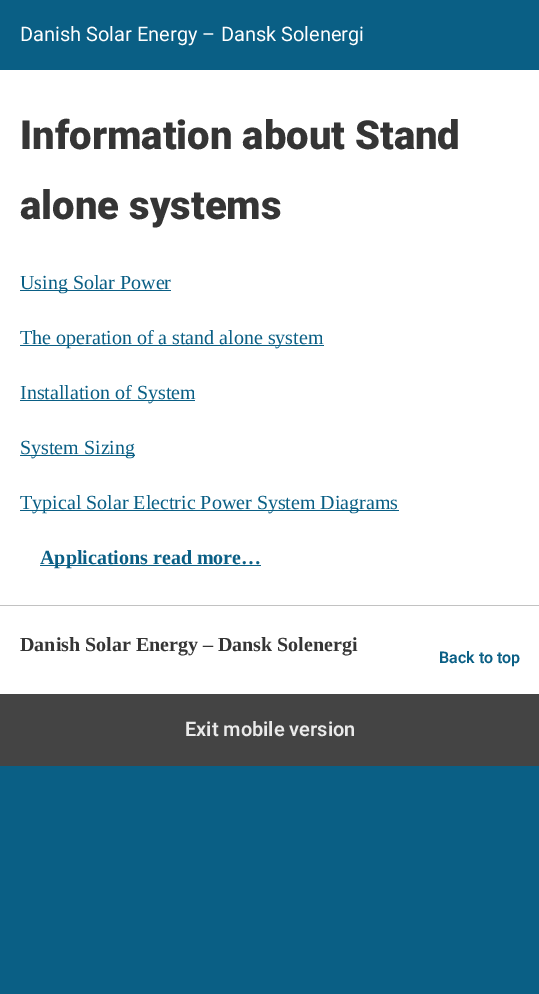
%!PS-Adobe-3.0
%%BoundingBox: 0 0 539 994
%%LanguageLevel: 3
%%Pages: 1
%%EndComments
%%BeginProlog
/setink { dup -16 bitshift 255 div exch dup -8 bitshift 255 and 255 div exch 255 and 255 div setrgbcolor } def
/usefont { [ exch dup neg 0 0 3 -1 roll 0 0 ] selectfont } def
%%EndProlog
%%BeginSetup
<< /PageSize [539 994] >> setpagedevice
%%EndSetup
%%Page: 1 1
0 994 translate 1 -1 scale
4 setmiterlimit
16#0A5F85 setink
0 0 539 994 rectfill
16#FFFFFF setink
0 70 539 624 rectfill
/Roboto-Regular 20 usefont
20 41 moveto (Danish Solar Energy – Dansk Solenergi) show
/Roboto-Black 40 usefont
16#353535 setink
20 149 moveto (Information about Stand) show
20 219 moveto (alone systems) show
16#0A5F85 setink
20 290 151 1 rectfill
/LiberationSerif-Regular 20 usefont
20 289 moveto (Using Solar Power) show
20 345 304 1 rectfill
20 344 moveto (The operation of a stand alone system) show
20 400 175 1 rectfill
20 399 moveto (Installation of System) show
20 455 115 1 rectfill
20 454 moveto (System Sizing) show
20 510 379 1 rectfill
20 509 moveto (Typical Solar Electric Power System Diagrams) show
40 565 221 1 rectfill
/LiberationSerif-Bold 20 usefont
40 564 moveto (Applications read more…) show
16#C2C2C2 setink
0 605 539 1 rectfill
16#353535 setink
20 651 moveto (Danish Solar Energy – Dansk Solenergi) show
/Roboto-SemiBold 16 usefont
16#0A5F85 setink
439 663 moveto (Back to top) show
16#444444 setink
0 694 539 72 rectfill
/Roboto-SemiBold 20 usefont
16#EAEAEA setink
185 736 moveto (Exit mobile version) show
showpage
%%EOF
